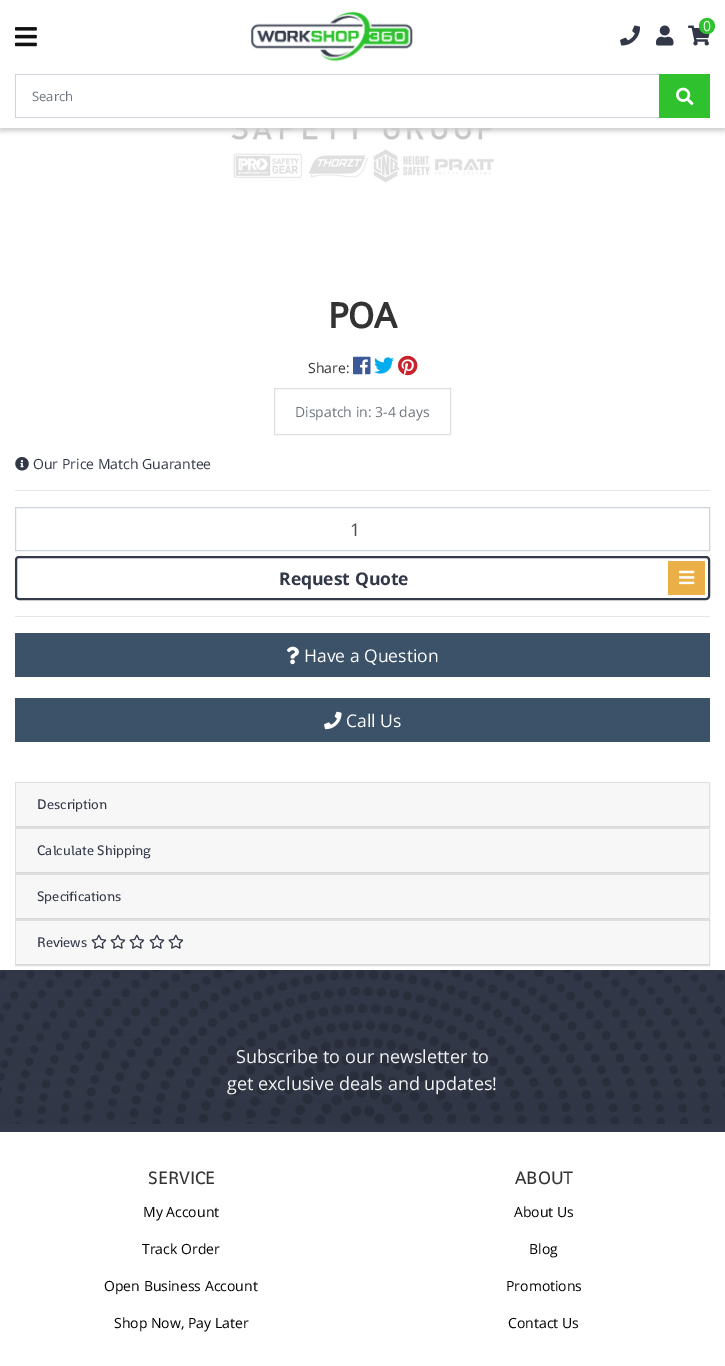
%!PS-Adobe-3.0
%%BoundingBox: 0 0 725 1366
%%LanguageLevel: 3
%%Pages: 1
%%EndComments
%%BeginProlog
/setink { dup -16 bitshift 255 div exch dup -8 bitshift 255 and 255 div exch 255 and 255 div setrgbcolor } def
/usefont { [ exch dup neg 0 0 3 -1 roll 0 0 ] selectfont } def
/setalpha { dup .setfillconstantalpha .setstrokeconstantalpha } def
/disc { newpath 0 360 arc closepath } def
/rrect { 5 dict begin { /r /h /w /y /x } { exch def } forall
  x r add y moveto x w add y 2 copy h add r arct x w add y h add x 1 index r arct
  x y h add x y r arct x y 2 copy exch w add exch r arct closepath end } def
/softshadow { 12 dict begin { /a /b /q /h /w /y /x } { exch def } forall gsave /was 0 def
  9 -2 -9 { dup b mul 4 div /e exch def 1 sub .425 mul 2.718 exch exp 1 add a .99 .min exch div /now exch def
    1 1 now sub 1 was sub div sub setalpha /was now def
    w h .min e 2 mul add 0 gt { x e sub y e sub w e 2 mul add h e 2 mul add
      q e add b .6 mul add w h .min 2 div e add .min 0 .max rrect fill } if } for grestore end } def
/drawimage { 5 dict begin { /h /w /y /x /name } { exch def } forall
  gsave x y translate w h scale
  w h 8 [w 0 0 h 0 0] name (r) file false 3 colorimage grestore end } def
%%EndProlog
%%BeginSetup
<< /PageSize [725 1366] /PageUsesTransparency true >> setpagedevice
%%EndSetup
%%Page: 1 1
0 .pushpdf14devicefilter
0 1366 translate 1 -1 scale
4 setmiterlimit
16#FFFFFF setink
0 0 725 1366 rectfill
(img7.raw) 231 128 264 55 drawimage
16#CCCCCC setink
0 3 725 128 0 2.5 1 softshadow
16#FFFFFF setink
0 0 725 128 rectfill
(img1.raw) 15 27 22 20 drawimage
(img2.raw) 250 11 163 51 drawimage
(img3.raw) 620 25 20 21 drawimage
(img4.raw) 656 25 18 21 drawimage
(img5.raw) 688 25 22 21 drawimage
16#2FC22E setink
707 26 8 disc fill
/OpenSans-Regular 14 usefont
16#FFFFFF setink
703 31 moveto (0) show
[
    [15 74 644 1 16#CED4DA]
    [15 117 644 1 16#CED4DA]
    [15 74 1 44 16#CED4DA]
] { aload pop setink rectfill } forall
/OpenSans-Regular 13 usefont
16#6C757D setink
32 101 moveto (Search) show
16#2FC22E setink
659 74 51 44 rectfill
(img6.raw) 676 87 18 19 drawimage
/Shanti-Bold 36 usefont
16#333333 setink
328 328 moveto (POA) show
/OpenSans-Regular 14 usefont
308 373 moveto (Share:) show
(img8.raw) 353 356 18 19 drawimage
(img9.raw) 374 357 20 17 drawimage
(img10.raw) 398 355 20 21 drawimage
16#DFDFDF setink
274.5 388.5 176 46 rectstroke
16#6C757D setink
295 417 moveto (Dispatch in: 3-4 days) show
(img11.raw) 15 457 14 14 drawimage
16#323848 setink
33 469 moveto (Our Price Match Guarantee) show
16#E6E6E6 setink
15 490 695 1 rectfill
16#CED4DA setink
15.5 507.5 694 43 rectstroke
/OpenSans-Regular 17.5 usefont
16#495057 setink
350 536 moveto (1) show
16#323948 setink
2 setlinewidth
16 557 693 42 3 rrect stroke
/OpenSans-Bold 17.5 usefont
16#323848 setink
279 585 moveto (Request Quote) show
16#EBAF48 setink
668 561 moveto 704 561 lineto 704.5 561 705 561.5 705 562 curveto 705 594 lineto 705 594.5 704.5 595 704 595 curveto 668 595 lineto closepath fill
(img12.raw) 679 570 16 15 drawimage
16#E6E6E6 setink
15 616 695 1 rectfill
16#3B5268 setink
15 633 695 44 rectfill
(img13.raw) 286 646 13 19 drawimage
/OpenSans-Regular 17.5 usefont
16#FFFFFF setink
304 662 moveto (Have a Question) show
16#3B5268 setink
15 698 695 44 rectfill
(img14.raw) 324 711 18 19 drawimage
16#FFFFFF setink
346 727 moveto (Call Us) show
16#DFDFDF setink
1 setlinewidth
15.5 782.5 694 45 rectstroke
16#F7F7F7 setink
16 783 693 43 rectfill
16#D8D8D8 setink
16 826 693 1 rectfill
/Shanti-Regular 14 usefont
16#323848 setink
37 809 moveto (Description) show
16#DFDFDF setink
15.5 828.5 694 45 rectstroke
16#F7F7F7 setink
16 829 693 43 rectfill
16#D8D8D8 setink
16 872 693 1 rectfill
16#323848 setink
37 855 moveto (Calculate Shipping) show
16#DFDFDF setink
15.5 874.5 694 45 rectstroke
16#F7F7F7 setink
16 875 693 43 rectfill
16#D8D8D8 setink
16 918 693 1 rectfill
16#323848 setink
37 901 moveto (Specifications) show
16#DFDFDF setink
15.5 920.5 694 45 rectstroke
16#F7F7F7 setink
16 921 693 43 rectfill
16#D8D8D8 setink
16 964 693 1 rectfill
16#323848 setink
37 947 moveto (Reviews) show
(img15.raw) 91 934 16 15 drawimage
(img15.raw) 110 934 16 15 drawimage
(img15.raw) 129 934 16 15 drawimage
(img15.raw) 149 934 16 15 drawimage
(img15.raw) 168 934 16 15 drawimage
0 1124 725 8 rectfill
(img16.raw) 0 970 725 154 drawimage
/OpenSans-Regular 18 usefont
16#F3F3F3 setink
236 1063 moveto (Subscribe to our newsletter to) show
227 1090 moveto (get exclusive deals and updates!) show
/Shanti-Regular 18 usefont
16#333333 setink
148 1184 moveto (SERVICE) show
/OpenSans-Regular 14 usefont
16#000000 setink
[
    [(My Account) 143 1217]
    [(Track Order) 142 1254]
    [(Open Business Account) 104 1291]
    [(Shop Now, Pay Later) 114 1328]
] { aload pop moveto show } forall
/Shanti-Regular 18 usefont
16#333333 setink
515 1184 moveto (ABOUT) show
/OpenSans-Regular 14 usefont
16#000000 setink
[
    [(About Us) 514 1217]
    [(Blog) 529 1254]
    [(Promotions) 506 1291]
    [(Contact Us) 508 1328]
] { aload pop moveto show } forall
.poppdf14devicefilter showpage
%%EOF
